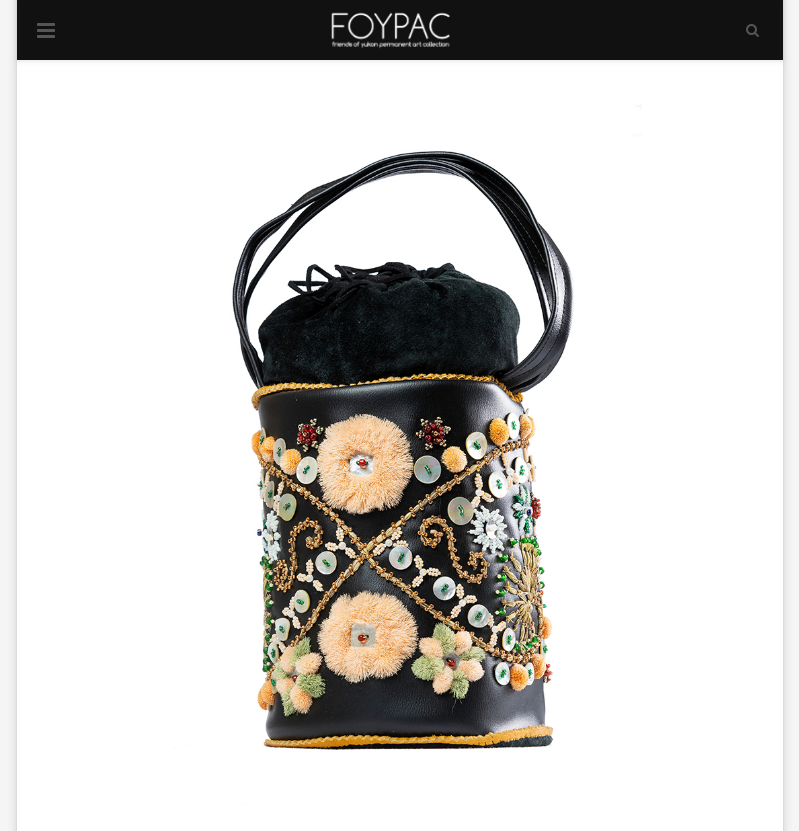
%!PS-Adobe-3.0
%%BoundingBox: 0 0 799 831
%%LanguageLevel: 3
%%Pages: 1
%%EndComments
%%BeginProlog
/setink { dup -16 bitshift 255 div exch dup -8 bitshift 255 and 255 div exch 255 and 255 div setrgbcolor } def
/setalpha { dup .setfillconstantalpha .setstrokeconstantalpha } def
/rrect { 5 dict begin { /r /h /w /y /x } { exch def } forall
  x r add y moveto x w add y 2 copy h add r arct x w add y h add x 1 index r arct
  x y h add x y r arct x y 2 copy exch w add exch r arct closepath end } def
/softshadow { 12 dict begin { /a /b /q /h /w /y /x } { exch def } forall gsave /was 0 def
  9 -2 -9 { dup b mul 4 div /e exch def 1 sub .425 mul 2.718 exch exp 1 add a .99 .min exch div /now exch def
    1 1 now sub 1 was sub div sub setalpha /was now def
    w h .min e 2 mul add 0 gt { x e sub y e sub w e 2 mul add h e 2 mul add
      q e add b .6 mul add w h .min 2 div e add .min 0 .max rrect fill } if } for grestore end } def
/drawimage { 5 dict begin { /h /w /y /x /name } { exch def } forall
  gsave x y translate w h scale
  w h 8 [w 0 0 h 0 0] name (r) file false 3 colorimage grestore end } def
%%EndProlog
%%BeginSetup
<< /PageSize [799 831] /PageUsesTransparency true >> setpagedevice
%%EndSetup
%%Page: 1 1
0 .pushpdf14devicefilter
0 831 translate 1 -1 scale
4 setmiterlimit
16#F5F5F5 setink
0 0 799 831 rectfill
16#000000 setink
17 -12 766 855 0 4 0.2 softshadow
16#FFFFFF setink
17 60 766 771 rectfill
16#BEBEBE setink
17 1 766 60 0 2.5 0.46 softshadow
16#111111 setink
17 0 766 60 rectfill
(img1.raw) 37 23 18 15 drawimage
(img2.raw) 331 12 119 37 drawimage
(img3.raw) 746 24 13 13 drawimage
(img4.raw) 164 104 478 701 drawimage
.poppdf14devicefilter showpage
%%EOF
